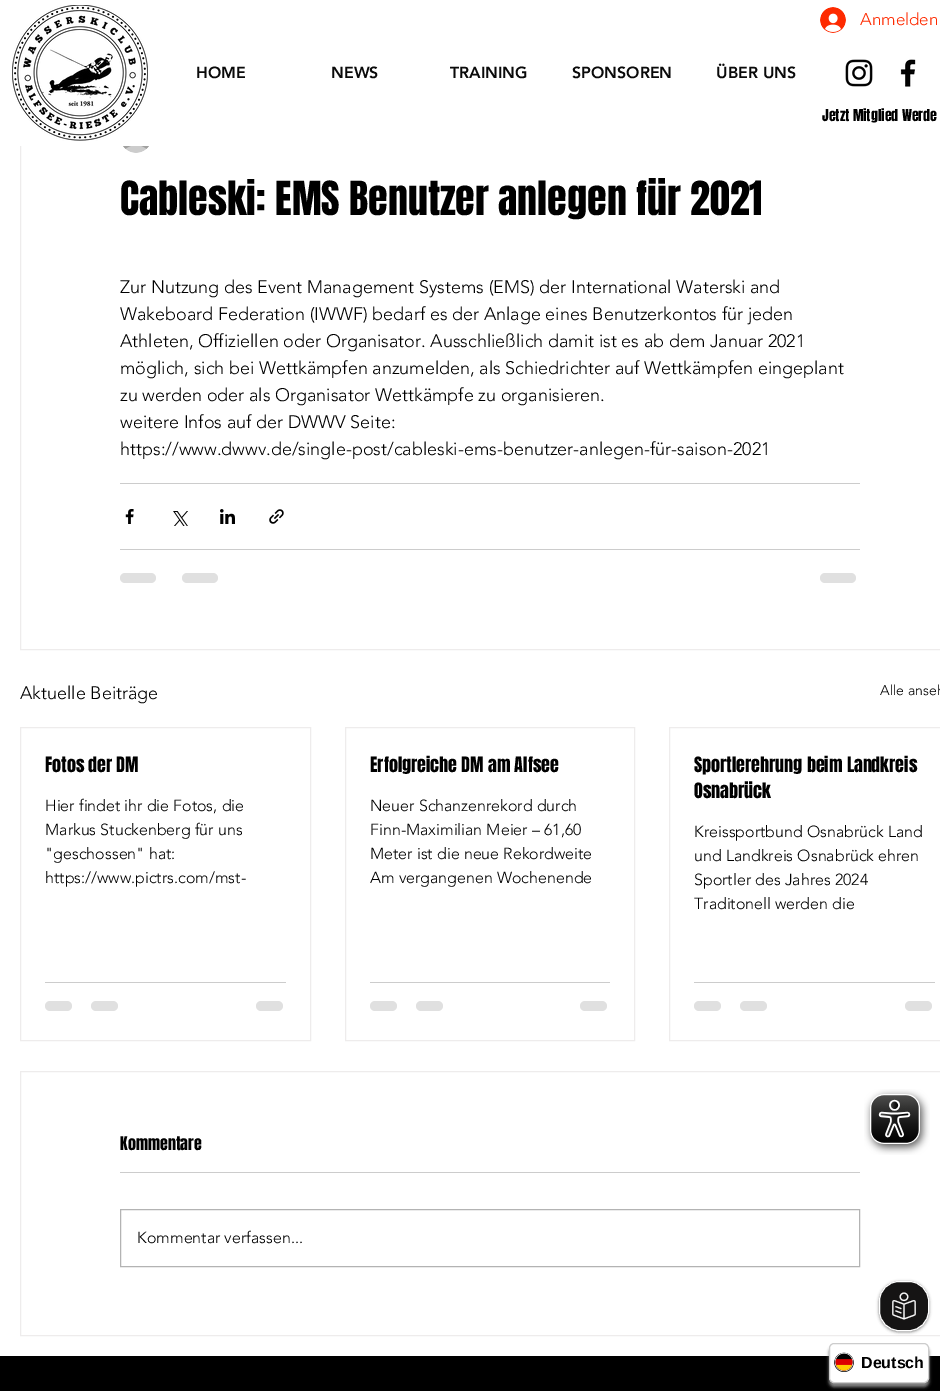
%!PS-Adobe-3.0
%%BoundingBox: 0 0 940 1391
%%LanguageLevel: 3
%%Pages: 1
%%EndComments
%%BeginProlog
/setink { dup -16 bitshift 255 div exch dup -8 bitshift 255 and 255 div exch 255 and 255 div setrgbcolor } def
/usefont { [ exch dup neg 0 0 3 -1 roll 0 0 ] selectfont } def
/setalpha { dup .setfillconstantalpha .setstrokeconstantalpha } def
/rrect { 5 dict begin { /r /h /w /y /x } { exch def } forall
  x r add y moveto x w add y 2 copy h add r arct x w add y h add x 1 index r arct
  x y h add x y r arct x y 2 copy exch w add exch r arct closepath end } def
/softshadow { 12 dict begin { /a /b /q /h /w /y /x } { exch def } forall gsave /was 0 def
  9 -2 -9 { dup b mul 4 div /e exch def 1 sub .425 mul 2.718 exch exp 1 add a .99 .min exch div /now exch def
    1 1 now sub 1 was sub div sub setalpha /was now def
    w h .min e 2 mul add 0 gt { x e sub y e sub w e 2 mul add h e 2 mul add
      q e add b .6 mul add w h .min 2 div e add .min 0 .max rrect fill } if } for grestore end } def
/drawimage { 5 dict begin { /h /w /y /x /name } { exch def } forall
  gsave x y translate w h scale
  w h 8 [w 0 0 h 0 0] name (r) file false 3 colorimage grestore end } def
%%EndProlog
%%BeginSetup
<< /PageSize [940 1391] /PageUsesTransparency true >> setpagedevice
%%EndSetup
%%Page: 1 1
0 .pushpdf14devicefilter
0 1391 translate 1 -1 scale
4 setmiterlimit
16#FFFFFF setink
0 0 940 1391 rectfill
16#EEECEC setink
20.5 60.5 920 589 rectstroke
16#FFFFFF setink
20 60 920 86 rectfill
(img1.raw) 12 5 136 136 drawimage
(img2.raw) 820 7 26 26 drawimage
/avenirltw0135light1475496-Light 17 usefont
16#FE2A00 setink
860 25 moveto (Anmelden) show
/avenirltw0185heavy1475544-Black 16 usefont
16#0A0A0A setink
[
    [(HOME) 196 78]
    [(NEWS) 331 78]
    [(TRAINING) 450 78]
    [(SPONSOREN) 572 78]
    [(ÜBER UNS) 716 78]
] { aload pop moveto show } forall
(img3.raw) 845 59 28 28 drawimage
(img4.raw) 900 59 16 28 drawimage
/Anton-Regular 14 usefont
16#000000 setink
822 121 moveto (Jetzt Mitglied Werde) show
(img5.raw) 123 146 26 7 drawimage
/Anton-Regular 40 usefont
120 215 moveto (Cableski: EMS Benutzer anlegen für 2021) show
/avenirltw0135light1475496-Light 18 usefont
[
    [(Zur Nutzung des Event Management Systems \(EMS\) der International Waterski and) 120 293]
    [(Wakeboard Federation \(IWWF\) bedarf es der Anlage eines Benutzerkontos für jeden) 120 320]
    [(Athleten, Offiziellen oder Organisator. Ausschließlich damit ist es ab dem Januar 2021) 120 347]
    [(möglich, sich bei Wettkämpfen anzumelden, als Schiedrichter auf Wettkämpfen eingeplant) 120 374]
    [(zu werden oder als Organisator Wettkämpfe zu organisieren.) 120 401]
    [(weitere Infos auf der DWWV Seite:) 120 428]
    [(https://www.dwwv.de/single-post/cableski-ems-benutzer-anlegen-für-saison-2021) 120 455]
] { aload pop moveto show } forall
16#CCCCCC setink
120 483 740 1 rectfill
(img6.raw) 125 509 9 15 drawimage
(img7.raw) 173 511 15 15 drawimage
(img8.raw) 220 509 15 15 drawimage
(img9.raw) 269 509 15 15 drawimage
120 549 740 1 rectfill
16#E0E0E0 setink
120 573 36 10 5 rrect fill
182 573 36 10 5 rrect fill
820 573 36 10 5 rrect fill
16#000000 setink
20 699 moveto (Aktuelle Beiträge) show
/avenirltw0135light1475496-Light 14 usefont
880 695 moveto (Alle anseh) show
16#EEECEC setink
20.5 727.5 290 313 rectstroke
/Anton-Regular 18 usefont
16#000000 setink
45 772 moveto (Fotos der DM) show
/avenirltw0135light1475496-Light 16 usefont
[
    [(Hier findet ihr die Fotos, die) 45 811]
    [(Markus Stuckenberg für uns) 45 835]
    [("geschossen" hat:) 45 859]
    [(https://www.pictrs.com/mst-) 45 883]
] { aload pop moveto show } forall
16#CCCCCC setink
45 982 241 1 rectfill
16#E0E0E0 setink
45 1001 27 10 5 rrect fill
91 1001 27 10 5 rrect fill
256 1001 27 10 5 rrect fill
16#EEECEC setink
345.5 727.5 289 313 rectstroke
/Anton-Regular 18 usefont
16#000000 setink
370 772 moveto (Erfolgreiche DM am Alfsee) show
/avenirltw0135light1475496-Light 16 usefont
[
    [(Neuer Schanzenrekord durch) 370 811]
    [(Finn-Maximilian Meier – 61,60) 370 835]
    [(Meter ist die neue Rekordweite) 370 859]
    [(Am vergangenen Wochenende) 370 883]
] { aload pop moveto show } forall
16#CCCCCC setink
370 982 240 1 rectfill
16#E0E0E0 setink
370 1001 27 10 5 rrect fill
416 1001 27 10 5 rrect fill
580 1001 27 10 5 rrect fill
16#EEECEC setink
669.5 727.5 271 313 rectstroke
/Anton-Regular 18 usefont
16#000000 setink
694 772 moveto (Sportlerehrung beim Landkreis) show
694 798 moveto (Osnabrück) show
/avenirltw0135light1475496-Light 16 usefont
[
    [(Kreissportbund Osnabrück Land) 694 837]
    [(und Landkreis Osnabrück ehren) 694 861]
    [(Sportler des Jahres 2024) 694 885]
    [(Traditonell werden die) 694 909]
] { aload pop moveto show } forall
16#CCCCCC setink
694 982 241 1 rectfill
16#E0E0E0 setink
694 1001 27 10 5 rrect fill
740 1001 27 10 5 rrect fill
905 1001 27 10 5 rrect fill
16#EEECEC setink
20.5 1071.5 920 264 rectstroke
/Anton-Regular 16 usefont
16#000000 setink
120 1150 moveto (Kommentare) show
16#CCCCCC setink
120 1172 740 1 rectfill
16#B3B3B3 setink
120.5 1209.5 739 57 rectstroke
/avenirltw0135light1475496-Light 16 usefont
16#000000 setink
137 1243 moveto (Kommentar verfassen...) show
0 1356 940 35 rectfill
(img10.raw) 864 1089 66 66 drawimage
16#848484 setink
879 1282 50 50 20 1.5 1 softshadow
16#151414 setink
879.5 1281.5 49 49 19.5 rrect gsave fill grestore
16#FFFFFF setink
stroke
(img11.raw) 892 1292 24 28 drawimage
16#848484 setink
829 1347 100 40 5 1.5 1 softshadow
16#FFFFFF setink
829.5 1343.5 99 39 4.5 rrect gsave fill grestore
16#CCCCCC setink
stroke
(img12.raw) 834 1352 20 20 drawimage
/LiberationSans-Bold 16 usefont
16#000000 setink
861 1368 moveto (Deutsch) show
.poppdf14devicefilter showpage
%%EOF
